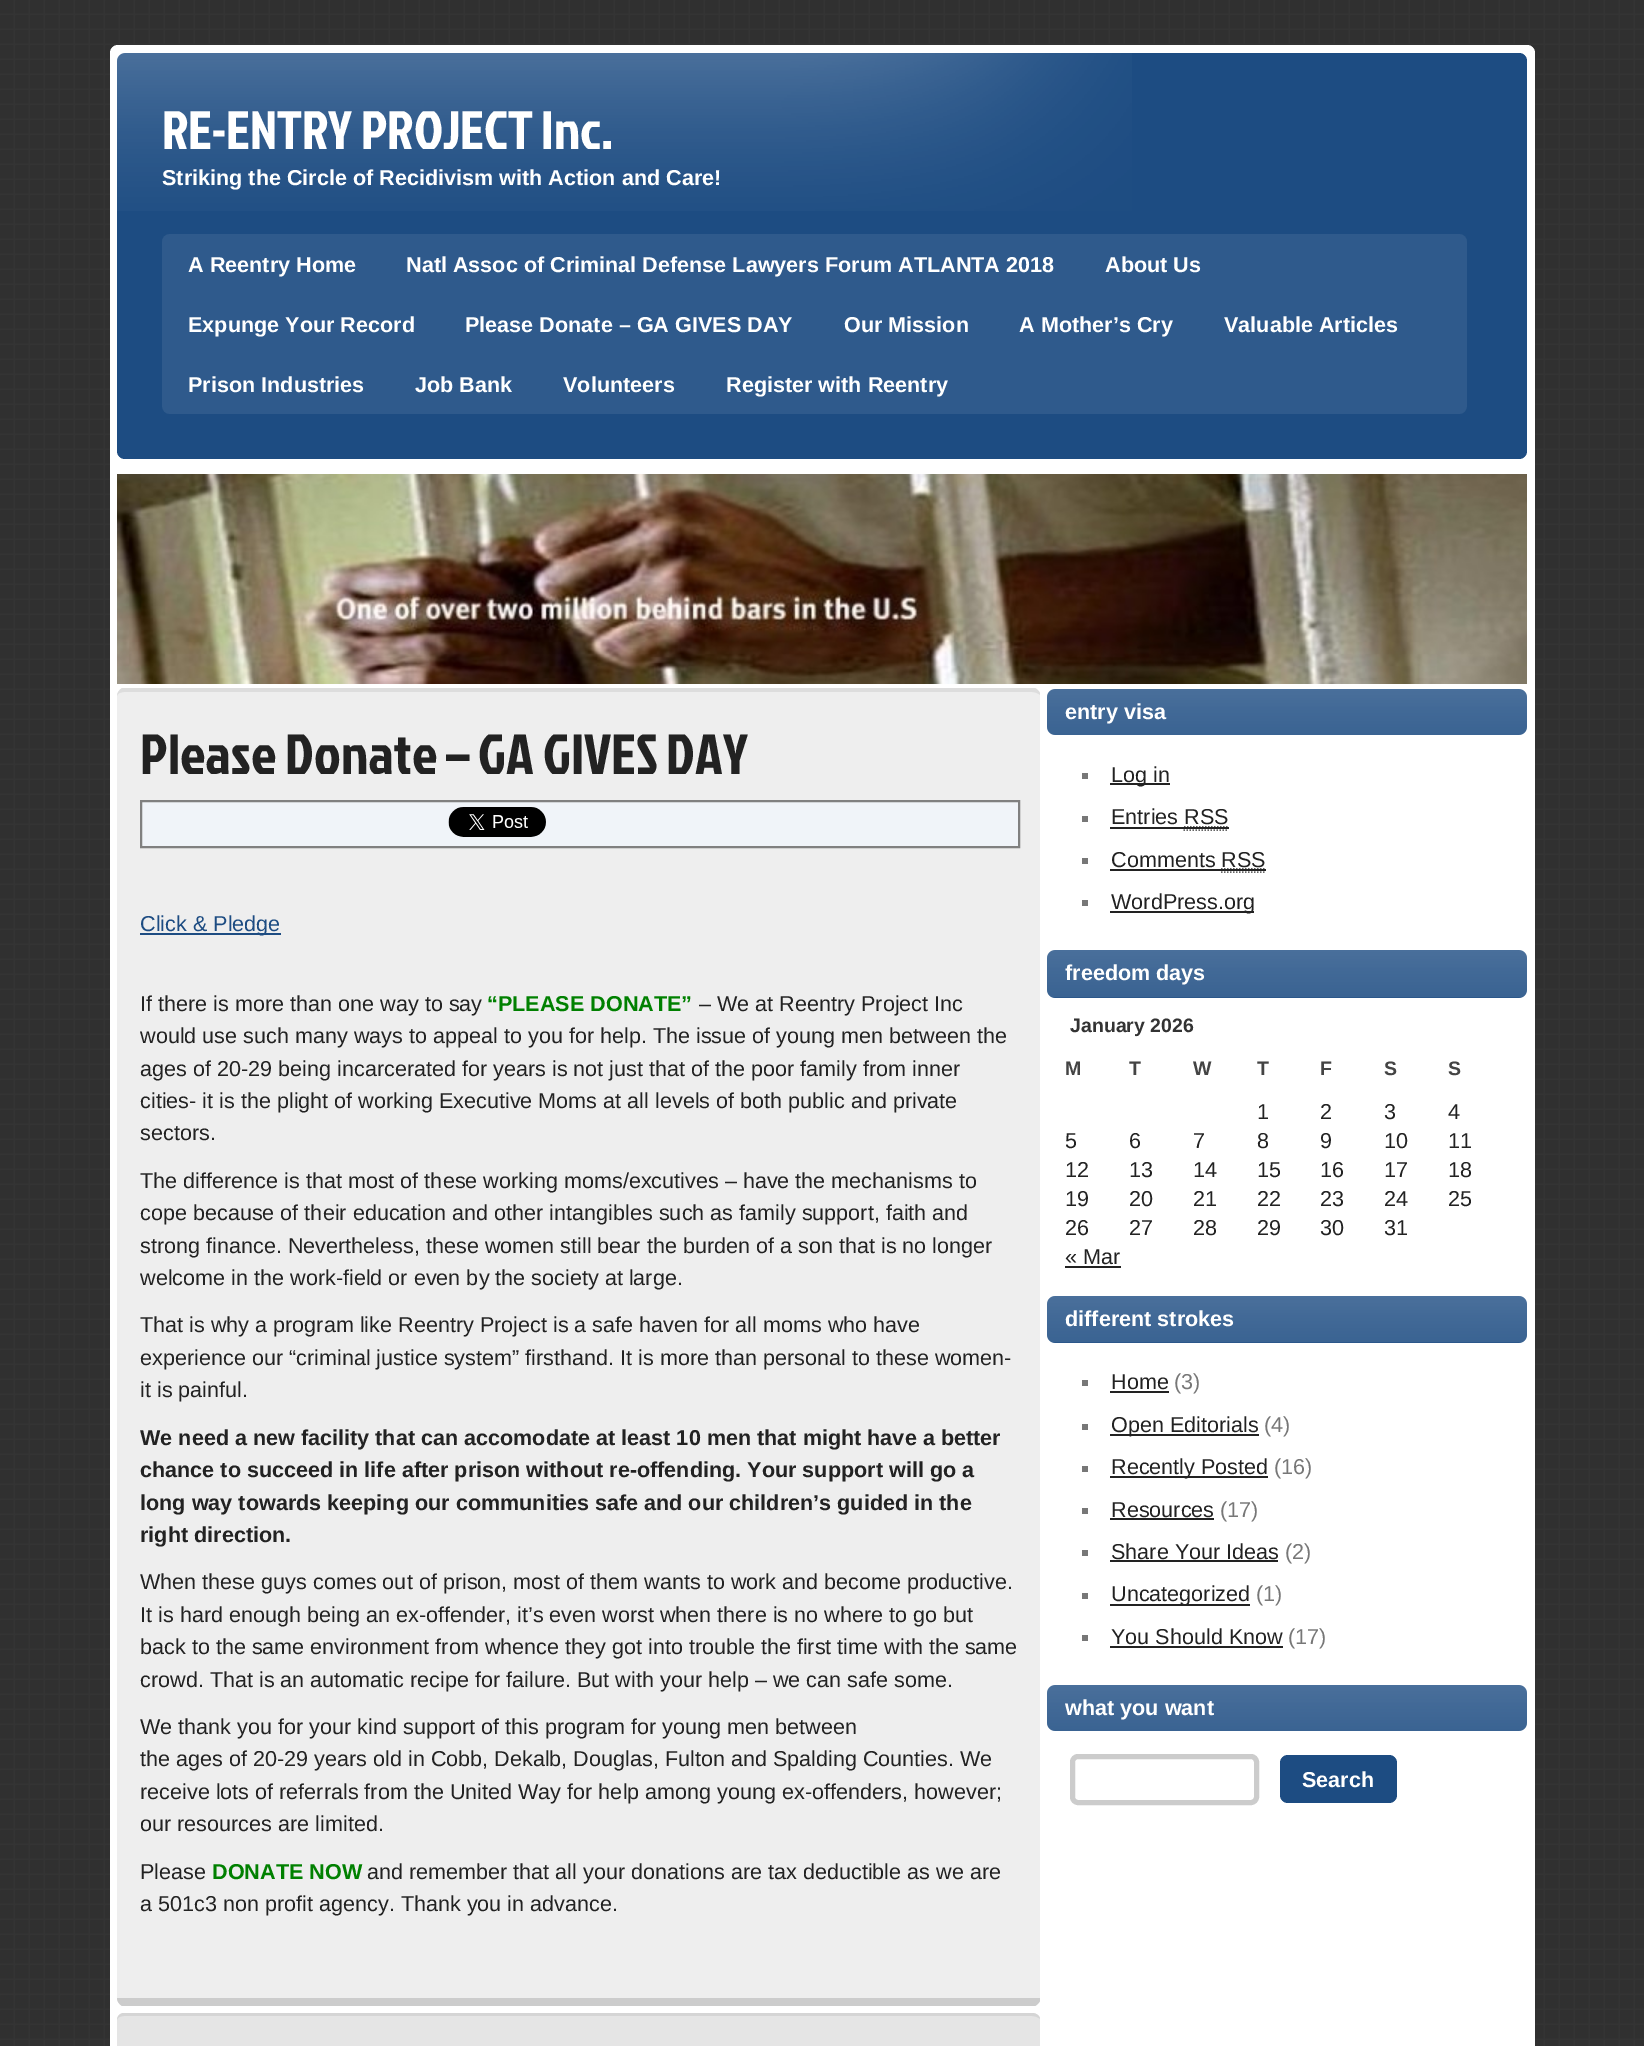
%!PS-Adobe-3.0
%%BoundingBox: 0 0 1644 2046
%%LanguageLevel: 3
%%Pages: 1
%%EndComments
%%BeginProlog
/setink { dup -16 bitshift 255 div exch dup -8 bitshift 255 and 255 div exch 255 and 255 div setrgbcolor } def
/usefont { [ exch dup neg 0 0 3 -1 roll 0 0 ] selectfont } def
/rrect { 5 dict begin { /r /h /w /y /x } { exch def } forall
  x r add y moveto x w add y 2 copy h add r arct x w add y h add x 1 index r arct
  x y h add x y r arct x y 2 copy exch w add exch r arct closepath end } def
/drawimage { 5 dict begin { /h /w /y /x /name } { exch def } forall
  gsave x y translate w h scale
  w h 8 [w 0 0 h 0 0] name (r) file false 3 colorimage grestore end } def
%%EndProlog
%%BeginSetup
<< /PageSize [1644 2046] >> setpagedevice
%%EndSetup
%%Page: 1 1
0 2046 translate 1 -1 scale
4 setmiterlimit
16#FFFFFF setink
0 0 1644 2046 rectfill
(img1.raw) 0 0 1644 2046 drawimage
110 45 1425 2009 8 rrect fill
16#1D4C82 setink
117 53 1410 406 8 rrect fill
(img2.raw) 117 53 1015 158 drawimage
/JockeyOne-Regular 54 usefont
16#FFFFFF setink
162 149 moveto (RE-ENTRY PROJECT Inc.) show
/LiberationSans-Bold 21.6 usefont
162 185 moveto (Striking the Circle of Recidivism with Action and Care!) show
(img3.raw) 162 234 1305 180 drawimage
[
    [(A Reentry Home) 188 272]
    [(Natl Assoc of Criminal Defense Lawyers Forum ATLANTA 2018) 406 272]
    [(About Us) 1105 272]
    [(Expunge Your Record) 188 332]
    [(Please Donate – GA GIVES DAY) 465 332]
    [(Our Mission) 844 332]
    [(A Mother’s Cry) 1019 332]
    [(Valuable Articles) 1224 332]
    [(Prison Industries) 188 392]
    [(Job Bank) 415 392]
    [(Volunteers) 563 392]
    [(Register with Reentry) 726 392]
] { aload pop moveto show } forall
(img4.raw) 117 474 1410 210 drawimage
16#EEEEEE setink
117 689 923 1317 8 rrect fill
16#DDDDDD setink
124 692 moveto 120 692 117 694 117 696 curveto 117 693 119 690 122 688 curveto 1035 688 lineto 1037 689 1039 691 1040 693 curveto 1040 695 lineto 1038 693 1035 692 1032 692 curveto closepath fill
16#CCCCCC setink
1040 1998 moveto 1040 2001 lineto 1039 2003 1037 2005 1035 2006 curveto 122 2006 lineto 119 2004 117 2001 117 1998 curveto closepath fill
/JockeyOne-Regular 56.25 usefont
16#222222 setink
140 774 moveto (Please Donate – GA GIVES DAY) show
16#F0F4F9 setink
141 801 moveto 1019 801 lineto 1019 847 lineto 141 847 lineto closepath gsave fill grestore
16#808080 setink
2 setlinewidth
stroke
(img5.raw) 448 807 98 30 drawimage
16#1D4C82 setink
140 933 141 2 rectfill
/LiberationSans-Regular 21.6 usefont
140 931 moveto (Click & Pledge) show
16#222222 setink
140 1011 moveto (If there is more than one way to say) show
/LiberationSans-Bold 21.6 usefont
16#008000 setink
487 1011 moveto (“PLEASE DONATE”) show
/LiberationSans-Regular 21.6 usefont
16#222222 setink
[
    [(– We at Reentry Project Inc) 699 1011]
    [(would use such many ways to appeal to you for help. The issue of young men between the) 140 1043]
    [(ages of 20-29 being incarcerated for years is not just that of the poor family from inner) 140 1076]
    [(cities- it is the plight of working Executive Moms at all levels of both public and private) 140 1108]
    [(sectors.) 140 1140]
    [(The difference is that most of these working moms/excutives – have the mechanisms to) 140 1188]
    [(cope because of their education and other intangibles such as family support, faith and) 140 1220]
    [(strong finance. Nevertheless, these women still bear the burden of a son that is no longer) 140 1253]
    [(welcome in the work-field or even by the society at large.) 140 1285]
    [(That is why a program like Reentry Project is a safe haven for all moms who have) 140 1332]
    [(experience our “criminal justice system” firsthand. It is more than personal to these women-) 140 1365]
    [(it is painful.) 140 1397]
] { aload pop moveto show } forall
/LiberationSans-Bold 21.6 usefont
[
    [(We need a new facility that can accomodate at least 10 men that might have a better) 140 1445]
    [(chance to succeed in life after prison without re-offending. Your support will go a) 140 1477]
    [(long way towards keeping our communities safe and our children’s guided in the) 140 1510]
    [(right direction.) 140 1542]
] { aload pop moveto show } forall
/LiberationSans-Regular 21.6 usefont
[
    [(When these guys comes out of prison, most of them wants to work and become productive.) 140 1589]
    [(It is hard enough being an ex-offender, it’s even worst when there is no where to go but) 140 1622]
    [(back to the same environment from whence they got into trouble the first time with the same) 140 1654]
    [(crowd. That is an automatic recipe for failure. But with your help – we can safe some.) 140 1687]
    [(We thank you for your kind support of this program for young men between) 140 1734]
    [(the ages of 20-29 years old in Cobb, Dekalb, Douglas, Fulton and Spalding Counties. We) 140 1766]
    [(receive lots of referrals from the United Way for help among young ex-offenders, however;) 140 1799]
    [(our resources are limited.) 140 1831]
    [(Please) 140 1879]
] { aload pop moveto show } forall
/LiberationSans-Bold 21.6 usefont
16#008000 setink
212 1879 moveto (DONATE NOW) show
/LiberationSans-Regular 21.6 usefont
16#222222 setink
367 1879 moveto (and remember that all your donations are tax deductible as we are) show
140 1911 moveto (a 501c3 non profit agency. Thank you in advance.) show
16#E5E5E5 setink
117 2013 923 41 8 rrect fill
16#D5D5D5 setink
124 2013 moveto 120 2013 117 2016 117 2020 curveto 117 2018 120 2016 124 2016 curveto 1032 2016 lineto 1035 2016 1038 2017 1040 2019 curveto 1040 2015 1035 2013 1032 2013 curveto closepath fill
16#1D4C82 setink
1047 689 480 46 8 rrect fill
(img6.raw) 1047 689 480 46 drawimage
/LiberationSans-Bold 21.6 usefont
16#FFFFFF setink
1065 719 moveto (entry visa) show
16#777777 setink
1082 773 6 6 rectfill
16#222222 setink
1110 783 60 2 rectfill
/LiberationSans-Regular 21.6 usefont
1111 782 moveto (Log in) show
16#777777 setink
1082 816 6 6 rectfill
16#222222 setink
1111 824 moveto (Entries RSS) show
1110 827 74 2 rectfill
16#666666 setink
1.5 setlinewidth
[1.5 1.5] 0 setdash
1183.5 830 moveto 1228.5 830 lineto stroke
16#222222 setink
1184 827 moveto 1228 827 lineto stroke
1184 827 45 2 rectfill
16#777777 setink
1082 858 6 6 rectfill
16#222222 setink
1111 867 moveto (Comments RSS) show
1110 869 111 2 rectfill
16#666666 setink
1221 872 moveto 1266 872 lineto stroke
16#222222 setink
1221 869 moveto 1265.5 869 lineto stroke
[
    [1221 869 45 2 16#222222]
    [1082 900 6 6 16#777777]
    [1110 911 144 2 16#222222]
] { aload pop setink rectfill } forall
1111 909 moveto (WordPress.org) show
16#1D4C82 setink
1047 950 480 48 8 rrect fill
(img7.raw) 1047 950 480 48 drawimage
/LiberationSans-Bold 21.6 usefont
16#FFFFFF setink
1065 980 moveto (freedom days) show
/LiberationSans-Bold 19.5 usefont
16#333333 setink
1070 1032 moveto (January 2026) show
16#444444 setink
[
    [(M) 1065 1075]
    [(T) 1129 1075]
    [(W) 1193 1075]
    [(T) 1257 1075]
    [(F) 1320 1075]
    [(S) 1384 1075]
    [(S) 1448 1075]
] { aload pop moveto show } forall
/LiberationSans-Regular 21.6 usefont
16#222222 setink
[
    [(1) 1257 1119]
    [(2) 1320 1119]
    [(3) 1384 1119]
    [(4) 1448 1119]
    [(5) 1065 1148]
    [(6) 1129 1148]
    [(7) 1193 1148]
    [(8) 1257 1148]
    [(9) 1320 1148]
    [(10) 1384 1148]
    [(11) 1448 1148]
    [(12) 1065 1177]
    [(13) 1129 1177]
    [(14) 1193 1177]
    [(15) 1257 1177]
    [(16) 1320 1177]
    [(17) 1384 1177]
    [(18) 1448 1177]
    [(19) 1065 1206]
    [(20) 1129 1206]
    [(21) 1193 1206]
    [(22) 1257 1206]
    [(23) 1320 1206]
    [(24) 1384 1206]
    [(25) 1448 1206]
    [(26) 1065 1235]
    [(27) 1129 1235]
    [(28) 1193 1235]
    [(29) 1257 1235]
    [(30) 1320 1235]
    [(31) 1384 1235]
    [(« Mar) 1065 1264]
] { aload pop moveto show } forall
1065 1266 56 2 rectfill
16#1D4C82 setink
1047 1296 480 47 8 rrect fill
(img8.raw) 1047 1296 480 47 drawimage
/LiberationSans-Bold 21.6 usefont
16#FFFFFF setink
1065 1326 moveto (different strokes) show
16#777777 setink
1082 1380 6 6 rectfill
/LiberationSans-Regular 21.6 usefont
16#222222 setink
1111 1389 moveto (Home) show
1110 1391 59 2 rectfill
16#777777 setink
1174 1389 moveto (\(3\)) show
1082 1424 6 6 rectfill
16#222222 setink
1110 1434 149 2 rectfill
1111 1432 moveto (Open Editorials) show
16#777777 setink
1264 1432 moveto (\(4\)) show
1082 1466 6 6 rectfill
16#222222 setink
1110 1476 158 2 rectfill
1111 1474 moveto (Recently Posted) show
16#777777 setink
1274 1474 moveto (\(16\)) show
1082 1508 6 6 rectfill
16#222222 setink
1111 1517 moveto (Resources) show
1110 1518 104 2 rectfill
16#777777 setink
1220 1517 moveto (\(17\)) show
1082 1550 6 6 rectfill
16#222222 setink
1111 1559 moveto (Share Your Ideas) show
1110 1560 168 2 rectfill
16#777777 setink
1285 1559 moveto (\(2\)) show
1082 1593 6 6 rectfill
16#222222 setink
1110 1604 140 2 rectfill
1111 1601 moveto (Uncategorized) show
16#777777 setink
1256 1601 moveto (\(1\)) show
1082 1635 6 6 rectfill
16#222222 setink
1111 1644 moveto (You Should Know) show
1110 1646 173 2 rectfill
16#777777 setink
1288 1644 moveto (\(17\)) show
16#1D4C82 setink
1047 1685 480 46 8 rrect fill
(img6.raw) 1047 1685 480 46 drawimage
/LiberationSans-Bold 21.6 usefont
16#FFFFFF setink
1065 1715 moveto (what you want) show
16#CCCCCC setink
5 setlinewidth
[] 0 setdash
1072.5 1756.5 184 46 5.5 rrect stroke
16#1D4C82 setink
1280 1755 117 48 8 rrect fill
16#FFFFFF setink
1302 1787 moveto (Search) show
showpage
%%EOF
